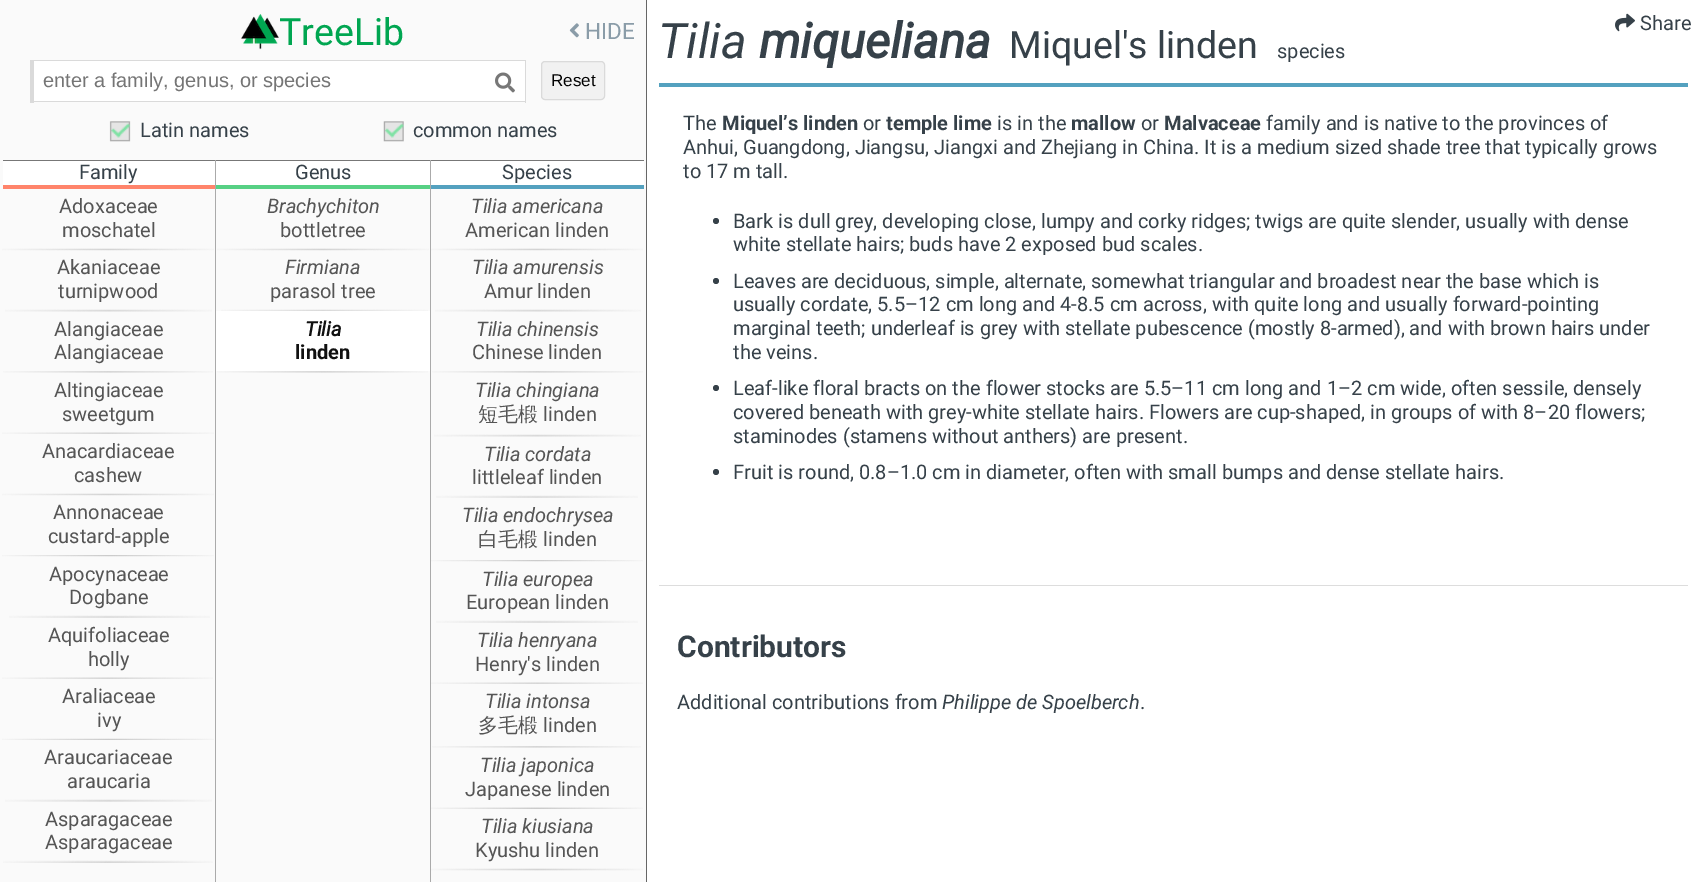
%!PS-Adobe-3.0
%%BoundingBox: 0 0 1700 882
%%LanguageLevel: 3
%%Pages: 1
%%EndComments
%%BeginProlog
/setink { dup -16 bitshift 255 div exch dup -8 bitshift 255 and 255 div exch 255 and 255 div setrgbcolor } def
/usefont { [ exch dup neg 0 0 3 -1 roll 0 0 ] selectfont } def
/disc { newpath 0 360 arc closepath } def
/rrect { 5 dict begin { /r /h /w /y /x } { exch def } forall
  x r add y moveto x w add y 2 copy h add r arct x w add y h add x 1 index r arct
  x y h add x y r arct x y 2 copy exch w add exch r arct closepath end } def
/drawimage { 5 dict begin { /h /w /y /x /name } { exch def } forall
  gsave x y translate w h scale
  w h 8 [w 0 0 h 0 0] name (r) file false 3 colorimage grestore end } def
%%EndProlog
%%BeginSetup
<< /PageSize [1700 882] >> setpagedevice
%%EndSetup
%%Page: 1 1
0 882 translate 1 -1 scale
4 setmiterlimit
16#FFFFFF setink
0 0 1700 882 rectfill
16#FAFAFA setink
0 0 646 882 rectfill
16#666666 setink
646 0 1 882 rectfill
(img1.raw) 241 14 38 36 drawimage
/Roboto-Regular 37.5 usefont
16#00A651 setink
279 45 moveto (TreeLib) show
(img2.raw) 569 23 10 15 drawimage
/Roboto-Regular 22.5 usefont
16#8A9CA8 setink
585 39 moveto (HIDE) show
[
    [34 61 491 40 16#FFFFFF]
    [30 60 496 1 16#DADADA]
    [30 101 454 1 16#DADADA]
    [30 60 4 43 16#DADADA]
] { aload pop setink rectfill } forall
/LiberationSans-Regular 20 usefont
16#757575 setink
43 87 moveto (enter a family, genus, or species) show
16#DADADA setink
525 60 1 43 rectfill
484 101 42 1 rectfill
(img3.raw) 495 72 20 21 drawimage
16#F1F1F1 setink
541.5 61.5 63 38 3.5 rrect gsave fill grestore
16#DADADA setink
stroke
/LiberationSans-Regular 17 usefont
16#000000 setink
551 86 moveto (Reset) show
(img4.raw) 109 121 22 21 drawimage
/Roboto-Regular 20 usefont
16#364149 setink
140 137 moveto (Latin names) show
(img5.raw) 383 121 21 21 drawimage
413 137 moveto (common names) show
[
    [215 160 1 722 16#AAAAAA]
    [3 161 212 24 16#FFFFFF]
    [3 160 212 1 16#777777]
    [3 185 212 4 16#FF846B]
] { aload pop setink rectfill } forall
16#364149 setink
79 179 moveto (Family) show
(img6.raw) 2 248 212 3 drawimage
16#555555 setink
59 213 moveto (Adoxaceae) show
62 237 moveto (moschatel) show
(img7.raw) 5 309 207 3 drawimage
57 274 moveto (Akaniaceae) show
58 298 moveto (turnipwood) show
(img8.raw) 3 371 210 2 drawimage
54 336 moveto (Alangiaceae) show
54 359 moveto (Alangiaceae) show
(img9.raw) 2 432 212 2 drawimage
54 397 moveto (Altingiaceae) show
62 421 moveto (sweetgum) show
(img10.raw) 2 493 212 3 drawimage
42 458 moveto (Anacardiaceae) show
74 482 moveto (cashew) show
(img11.raw) 2 555 212 2 drawimage
53 519 moveto (Annonaceae) show
48 543 moveto (custard-apple) show
(img12.raw) 9 615 201 3 drawimage
49 581 moveto (Apocynaceae) show
69 604 moveto (Dogbane) show
(img13.raw) 2 677 211 2 drawimage
48 642 moveto (Aquifoliaceae) show
88 666 moveto (holly) show
(img14.raw) 2 738 212 2 drawimage
62 703 moveto (Araliaceae) show
97 727 moveto (ivy) show
(img15.raw) 5 799 207 3 drawimage
44 764 moveto (Araucariaceae) show
67 788 moveto (araucaria) show
(img16.raw) 3 860 210 3 drawimage
45 826 moveto (Asparagaceae) show
45 849 moveto (Asparagaceae) show
[
    [430 160 1 722 16#AAAAAA]
    [216 161 214 24 16#FFFFFF]
    [216 160 214 1 16#777777]
    [216 185 214 4 16#57D084]
] { aload pop setink rectfill } forall
16#364149 setink
295 179 moveto (Genus) show
(img17.raw) 217 248 212 3 drawimage
/Roboto-Italic 20 usefont
16#555555 setink
267 213 moveto (Brachychiton) show
/Roboto-Regular 20 usefont
280 237 moveto (bottletree) show
(img18.raw) 221 309 207 2 drawimage
/Roboto-Italic 20 usefont
285 274 moveto (Firmiana) show
/Roboto-Regular 20 usefont
270 298 moveto (parasol tree) show
16#FFFFFF setink
216 311 214 60 rectfill
(img19.raw) 217 371 211 2 drawimage
/Roboto-BoldItalic 20 usefont
16#111111 setink
305 336 moveto (Tilia) show
/Roboto-Bold 20 usefont
295 359 moveto (linden) show
[
    [431 161 213 24 16#FFFFFF]
    [431 160 213 1 16#777777]
    [431 185 213 4 16#54A1BF]
] { aload pop setink rectfill } forall
/Roboto-Regular 20 usefont
16#364149 setink
502 179 moveto (Species) show
(img20.raw) 431 248 212 3 drawimage
/Roboto-Italic 20 usefont
16#555555 setink
471 213 moveto (Tilia americana) show
/Roboto-Regular 20 usefont
465 237 moveto (American linden) show
(img21.raw) 435 309 206 3 drawimage
/Roboto-Italic 20 usefont
472 274 moveto (Tilia amurensis) show
/Roboto-Regular 20 usefont
484 298 moveto (Amur linden) show
(img22.raw) 432 371 211 2 drawimage
/Roboto-Italic 20 usefont
476 336 moveto (Tilia chinensis) show
/Roboto-Regular 20 usefont
472 359 moveto (Chinese linden) show
(img23.raw) 434 434 207 3 drawimage
/Roboto-Italic 20 usefont
475 397 moveto (Tilia chingiana) show
/WenQuanYiZenHei-Medium 20 usefont
478 421 moveto (短毛椴) show
/Roboto-Regular 20 usefont
543 421 moveto (linden) show
(img24.raw) 436 495 202 3 drawimage
/Roboto-Italic 20 usefont
484 461 moveto (Tilia cordata) show
/Roboto-Regular 20 usefont
472 484 moveto (littleleaf linden) show
(img25.raw) 431 560 212 2 drawimage
/Roboto-Italic 20 usefont
462 522 moveto (Tilia endochrysea) show
/WenQuanYiZenHei-Medium 20 usefont
478 546 moveto (白毛椴) show
/Roboto-Regular 20 usefont
543 546 moveto (linden) show
(img26.raw) 436 620 202 3 drawimage
/Roboto-Italic 20 usefont
482 586 moveto (Tilia europea) show
/Roboto-Regular 20 usefont
466 609 moveto (European linden) show
(img27.raw) 431 682 212 2 drawimage
/Roboto-Italic 20 usefont
477 647 moveto (Tilia henryana) show
/Roboto-Regular 20 usefont
475 671 moveto (Henry's linden) show
(img28.raw) 432 746 209 2 drawimage
/Roboto-Italic 20 usefont
485 708 moveto (Tilia intonsa) show
/WenQuanYiZenHei-Medium 20 usefont
478 732 moveto (多毛椴) show
/Roboto-Regular 20 usefont
543 732 moveto (linden) show
(img29.raw) 431 807 212 2 drawimage
/Roboto-Italic 20 usefont
480 772 moveto (Tilia japonica) show
/Roboto-Regular 20 usefont
465 796 moveto (Japanese linden) show
(img30.raw) 431 868 212 3 drawimage
/Roboto-Italic 20 usefont
481 833 moveto (Tilia kiusiana) show
/Roboto-Regular 20 usefont
475 857 moveto (Kyushu linden) show
16#54A1BF setink
659 83 1029 4 rectfill
/Roboto-Italic 48.75 usefont
16#364149 setink
658 58 moveto (Tilia) show
/Roboto-BoldItalic 48.75 usefont
759 58 moveto (miqueliana) show
/Roboto-Regular 37.5 usefont
1009 58 moveto (Miquel's linden) show
/Roboto-Regular 20 usefont
1277 58 moveto (species) show
(img31.raw) 1615 13 20 19 drawimage
1640 30 moveto (Share) show
683 130 moveto (The) show
/Roboto-Bold 20 usefont
722 130 moveto (Miquel’s linden) show
/Roboto-Regular 20 usefont
863 130 moveto (or) show
/Roboto-Bold 20 usefont
886 130 moveto (temple lime) show
/Roboto-Regular 20 usefont
997 130 moveto (is in the) show
/Roboto-Bold 20 usefont
1071 130 moveto (mallow) show
/Roboto-Regular 20 usefont
1141 130 moveto (or) show
/Roboto-Bold 20 usefont
1164 130 moveto (Malvaceae) show
/Roboto-Regular 20 usefont
[
    [(family and is native to the provinces of) 1266 130]
    [(Anhui, Guangdong, Jiangsu, Jiangxi and Zhejiang in China. It is a medium sized shade tree that typically grows) 683 154]
    [(to 17 m tall.) 683 178]
] { aload pop moveto show } forall
716 221 3 disc fill
733 228 moveto (Bark is dull grey, developing close, lumpy and corky ridges; twigs are quite slender, usually with dense) show
733 251 moveto (white stellate hairs; buds have 2 exposed bud scales.) show
716 281 3 disc fill
[
    [(Leaves are deciduous, simple, alternate, somewhat triangular and broadest near the base which is) 733 288]
    [(usually cordate, 5.5–12 cm long and 4-8.5 cm across, with quite long and usually forward-pointing) 733 311]
    [(marginal teeth; underleaf is grey with stellate pubescence \(mostly 8-armed\), and with brown hairs under) 733 335]
    [(the veins.) 733 359]
] { aload pop moveto show } forall
716 388 3 disc fill
[
    [(Leaf-like floral bracts on the flower stocks are 5.5–11 cm long and 1–2 cm wide, often sessile, densely) 733 395]
    [(covered beneath with grey-white stellate hairs. Flowers are cup-shaped, in groups of with 8–20 flowers;) 733 419]
    [(staminodes \(stamens without anthers\) are present.) 733 443]
] { aload pop moveto show } forall
716 472 3 disc fill
733 479 moveto (Fruit is round, 0.8–1.0 cm in diameter, often with small bumps and dense stellate hairs.) show
16#DDDDDD setink
659 585 1029 1 rectfill
/Roboto-Bold 30 usefont
16#364149 setink
677 657 moveto (Contributors) show
/Roboto-Regular 20 usefont
677 709 moveto (Additional contributions from) show
/Roboto-Italic 20 usefont
942 709 moveto (Philippe de Spoelberch) show
/Roboto-Regular 20 usefont
1140 709 moveto (.) show
showpage
%%EOF
